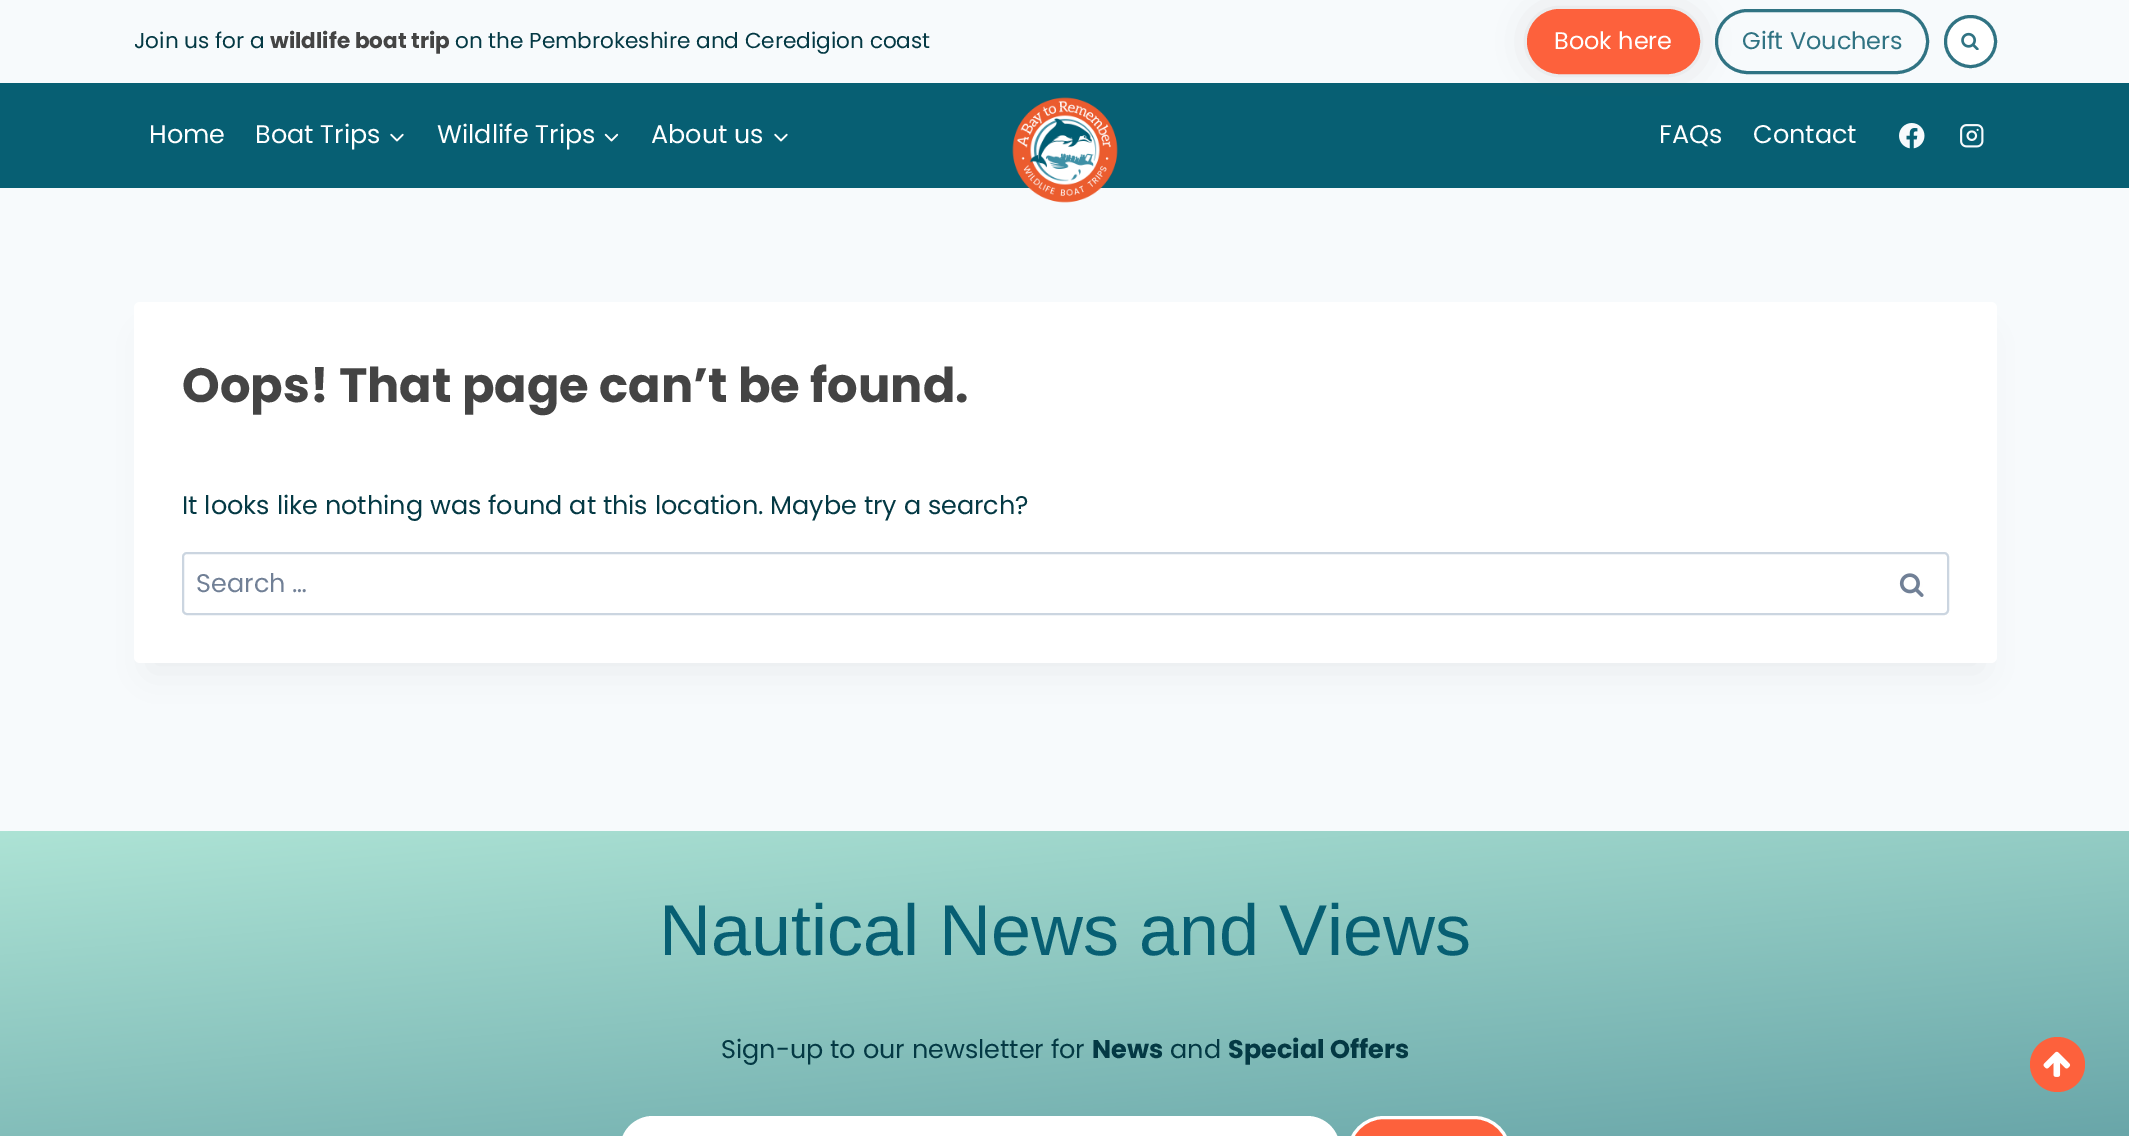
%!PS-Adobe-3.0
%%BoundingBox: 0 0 2129 1136
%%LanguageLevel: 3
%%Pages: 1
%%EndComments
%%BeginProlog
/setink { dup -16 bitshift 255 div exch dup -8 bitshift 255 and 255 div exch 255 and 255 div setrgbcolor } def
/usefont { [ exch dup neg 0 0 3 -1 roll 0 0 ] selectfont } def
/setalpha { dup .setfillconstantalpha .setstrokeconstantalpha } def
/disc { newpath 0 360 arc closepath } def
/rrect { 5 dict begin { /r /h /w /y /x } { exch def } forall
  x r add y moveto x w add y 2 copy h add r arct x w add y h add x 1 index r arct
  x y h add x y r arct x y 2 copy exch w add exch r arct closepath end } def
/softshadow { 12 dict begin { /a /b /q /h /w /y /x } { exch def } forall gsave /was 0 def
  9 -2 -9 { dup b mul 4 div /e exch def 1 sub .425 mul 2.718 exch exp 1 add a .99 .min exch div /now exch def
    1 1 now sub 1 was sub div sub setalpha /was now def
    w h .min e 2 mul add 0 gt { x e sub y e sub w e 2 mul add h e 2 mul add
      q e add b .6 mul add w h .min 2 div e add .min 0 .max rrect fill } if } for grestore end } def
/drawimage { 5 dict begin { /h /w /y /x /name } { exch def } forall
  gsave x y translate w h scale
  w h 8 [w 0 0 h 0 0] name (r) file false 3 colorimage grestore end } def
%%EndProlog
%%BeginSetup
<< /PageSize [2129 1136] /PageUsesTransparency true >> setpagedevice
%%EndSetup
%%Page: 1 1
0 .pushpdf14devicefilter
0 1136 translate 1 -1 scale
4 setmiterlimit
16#F7FAFC setink
0 0 2129 1136 rectfill
16#075F73 setink
0 83 2129 105 rectfill
/Poppins-Regular 21.6 usefont
16#043944 setink
134 48 moveto (Join us for a) show
/Poppins-Bold 21.6 usefont
16#444444 setink
270 48 moveto (wildlife boat trip) show
/Poppins-Regular 21.6 usefont
16#043944 setink
455 48 moveto (on the Pembrokeshire and Ceredigion coast) show
16#444444 setink
1538 20 151 43 21.5 19 0.25 softshadow
16#FD613C setink
1528.5 10.5 170 62 31 rrect gsave fill grestore
3 setlinewidth
stroke
/Poppins-Regular 24 usefont
16#FFFFFF setink
1554 49 moveto (Book here) show
16#307383 setink
1716.5 10.5 211 62 31 rrect stroke
1742 49 moveto (Gift Vouchers) show
16#FFFFFF setink
1970.5 41.5 25 disc gsave fill grestore
16#307383 setink
stroke
(img1.raw) 1961 32 18 18 drawimage
/Poppins-Regular 25.5 usefont
16#FFFFFF setink
149 143 moveto (Home) show
255 143 moveto (Boat Trips) show
(img2.raw) 390 133 14 9 drawimage
437 143 moveto (Wildlife Trips) show
(img3.raw) 604 133 15 9 drawimage
651 143 moveto (About us) show
(img2.raw) 774 133 14 9 drawimage
(img4.raw) 1012 97 106 106 drawimage
1659 143 moveto (FAQs) show
1753 143 moveto (Contact) show
(img5.raw) 1899 123 26 26 drawimage
(img6.raw) 1960 124 24 24 drawimage
16#000000 setink
149 339 1833 332 0 19 0.05 softshadow
16#FFFFFF setink
134 302 1863 361 6 rrect fill
/Poppins-Bold 48 usefont
16#444444 setink
182 402 moveto (Oops! That page can’t be found.) show
/Poppins-Regular 25.5 usefont
16#043944 setink
182 514 moveto (It looks like nothing was found at this location. Maybe try a search?) show
16#CBD5E0 setink
2 setlinewidth
183 553 1765 61 4 rrect stroke
16#718096 setink
196 592 moveto (Search …) show
(img7.raw) 1899 573 25 24 drawimage
gsave 0 831 moveto 2129 831 lineto 2129 1136 lineto 0 1136 lineto closepath clip newpath
<< /ShadingType 2 /ColorSpace /DeviceRGB /Coords [1025 741 1105 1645] /Extend [true true] /Function << /FunctionType 2 /Domain [0 1] /C0 [0.678 0.89 0.835] /C1 [0.188 0.451 0.514] /N 1 >> >> shfill grestore
/LiberationSans-Regular 72 usefont
16#075F73 setink
659 955 moveto (Nautical News and Views) show
/Poppins-Regular 25.5 usefont
16#043944 setink
721 1058 moveto (Sign-up to our newsletter for) show
/Poppins-Bold 25.5 usefont
1092 1058 moveto (News) show
/Poppins-Regular 25.5 usefont
1170 1058 moveto (and) show
/Poppins-Bold 25.5 usefont
1228 1058 moveto (Special Offers) show
16#FFFFFF setink
620 1116 720 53 33 rrect fill
16#FD613C setink
1348.5 1117.5 161 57 35.5 rrect gsave fill grestore
16#FFFFFF setink
3 setlinewidth
stroke
16#FD613C setink
2057.5 1064.5 27.5 disc fill
(img8.raw) 2043 1051 28 26 drawimage
.poppdf14devicefilter showpage
%%EOF
